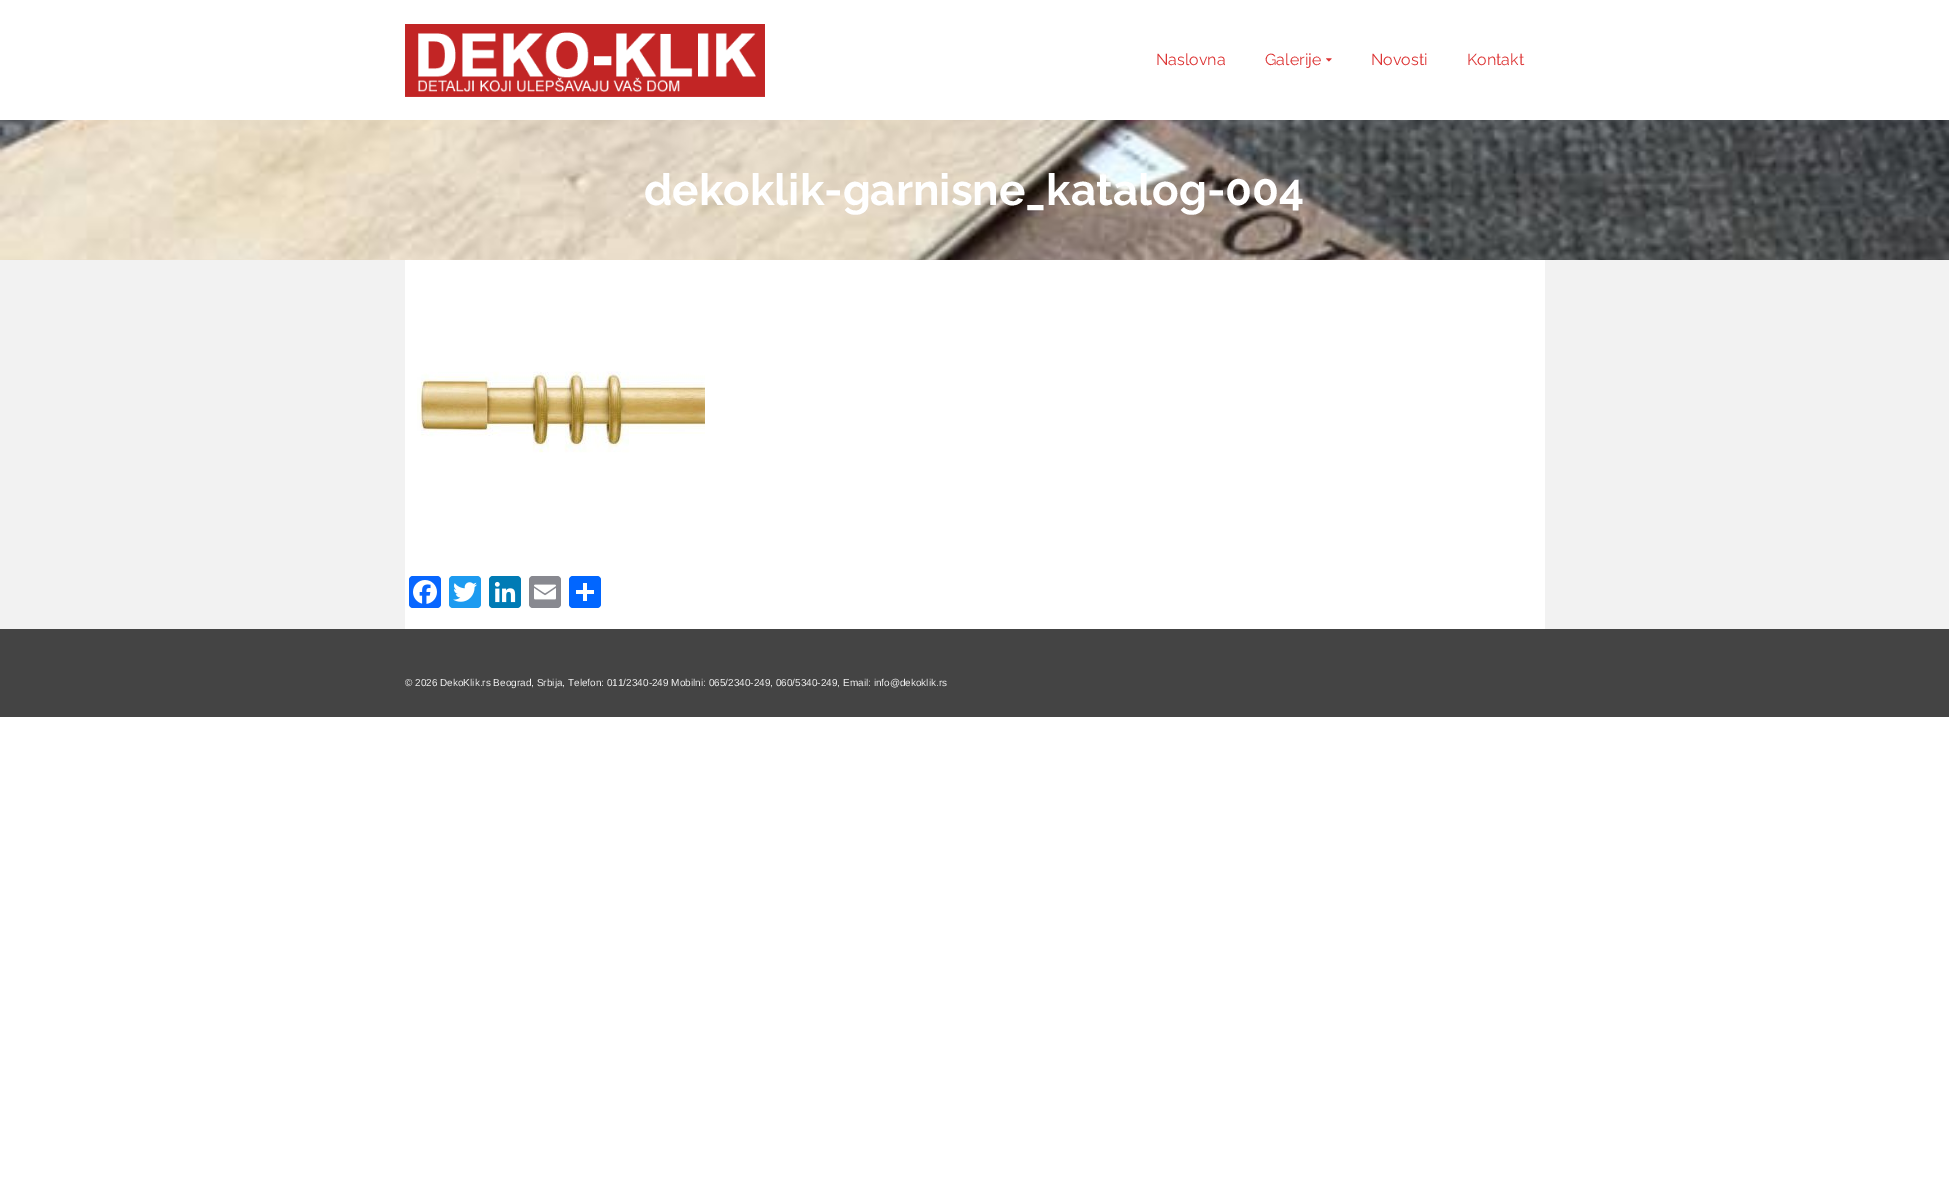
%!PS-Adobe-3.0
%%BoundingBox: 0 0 1949 1202
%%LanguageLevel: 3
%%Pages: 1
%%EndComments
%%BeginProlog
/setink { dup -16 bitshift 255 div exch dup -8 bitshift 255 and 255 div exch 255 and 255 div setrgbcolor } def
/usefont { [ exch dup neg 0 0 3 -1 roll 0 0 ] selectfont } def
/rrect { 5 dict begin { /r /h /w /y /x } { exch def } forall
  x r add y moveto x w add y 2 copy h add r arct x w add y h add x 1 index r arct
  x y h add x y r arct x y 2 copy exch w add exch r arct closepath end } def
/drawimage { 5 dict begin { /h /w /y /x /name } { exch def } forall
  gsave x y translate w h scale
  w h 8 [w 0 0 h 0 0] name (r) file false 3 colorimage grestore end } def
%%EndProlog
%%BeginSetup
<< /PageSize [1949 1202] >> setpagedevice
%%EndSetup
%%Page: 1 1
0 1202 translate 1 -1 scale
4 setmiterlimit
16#FFFFFF setink
0 0 1949 1202 rectfill
(img1.raw) 405 24 360 73 drawimage
/Raleway-Regular 16 usefont
16#DD3333 setink
1156 65 moveto (Naslovna) show
1265 65 moveto (Galerije) show
(img2.raw) 1326 58 6 4 drawimage
1371 65 moveto (Novosti) show
1467 65 moveto (Kontakt) show
16#F2F2F2 setink
0 260 1949 369 rectfill
(img3.raw) 0 120 1949 140 drawimage
/Raleway-Bold 44 usefont
16#FFFFFF setink
644 205 moveto (dekoklik-garnisne_katalog-004) show
405 260 1140 369 rectfill
(img4.raw) 417 371 288 82 drawimage
16#0866FF setink
409 576 32 32 4 rrect fill
(img5.raw) 413 580 24 24 drawimage
16#1D9BF0 setink
449 576 32 32 4 rrect fill
(img6.raw) 453 582 24 20 drawimage
16#007BB5 setink
489 576 32 32 4 rrect fill
(img7.raw) 494 581 22 22 drawimage
16#888990 setink
529 576 32 32 4 rrect fill
(img8.raw) 534 584 22 16 drawimage
16#0166FF setink
569 576 32 32 4 rrect fill
[
    [583 583 4 18 16#FFFFFF]
    [576 590 18 4 16#FFFFFF]
    [0 629 1949 88 16#444444]
] { aload pop setink rectfill } forall
/LiberationSans-Regular 10 usefont
16#F2F2F2 setink
405 686 moveto (© 2026 DekoKlik.rs Beograd, Srbija, Telefon: 011/2340-249 Mobilni: 065/2340-249, 060/5340-249, Email: info@dekoklik.rs) show
showpage
%%EOF
